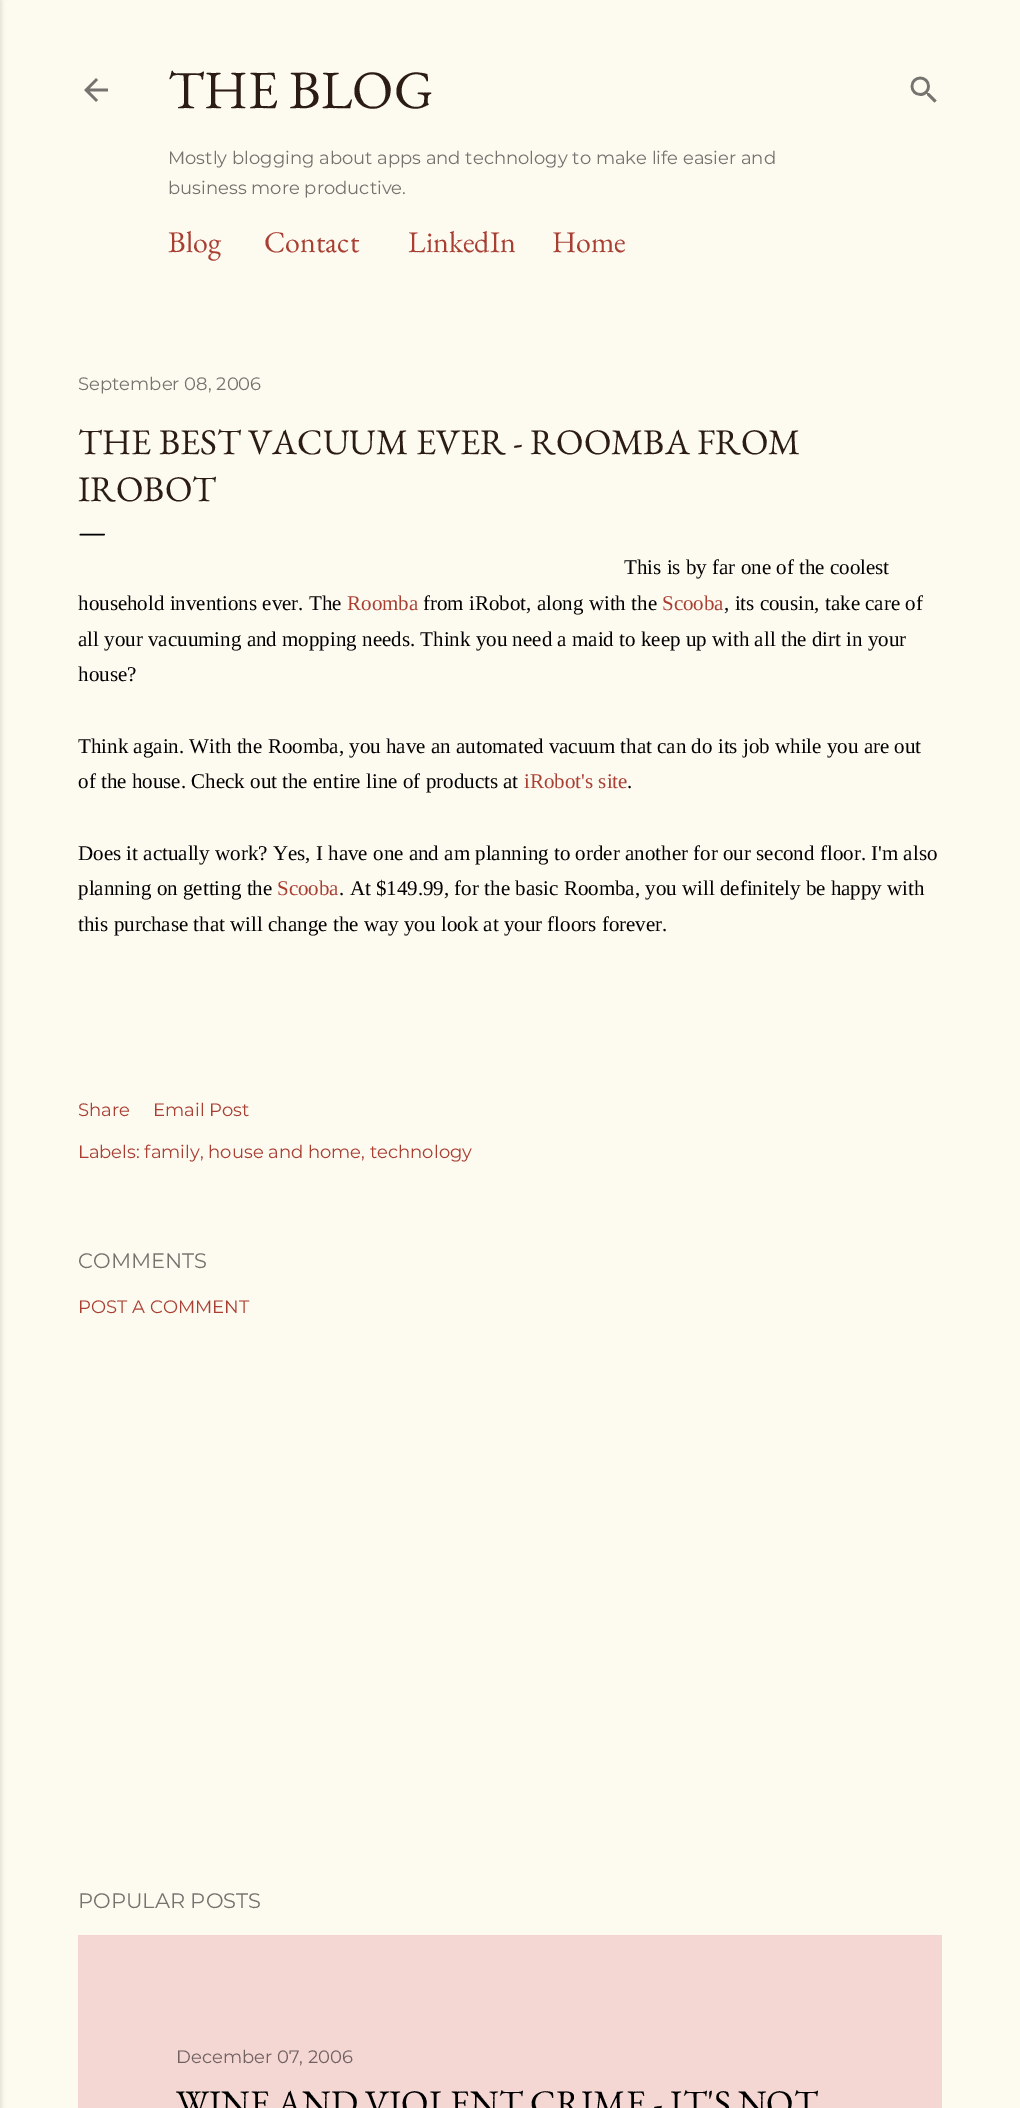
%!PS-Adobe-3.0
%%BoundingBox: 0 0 1020 2108
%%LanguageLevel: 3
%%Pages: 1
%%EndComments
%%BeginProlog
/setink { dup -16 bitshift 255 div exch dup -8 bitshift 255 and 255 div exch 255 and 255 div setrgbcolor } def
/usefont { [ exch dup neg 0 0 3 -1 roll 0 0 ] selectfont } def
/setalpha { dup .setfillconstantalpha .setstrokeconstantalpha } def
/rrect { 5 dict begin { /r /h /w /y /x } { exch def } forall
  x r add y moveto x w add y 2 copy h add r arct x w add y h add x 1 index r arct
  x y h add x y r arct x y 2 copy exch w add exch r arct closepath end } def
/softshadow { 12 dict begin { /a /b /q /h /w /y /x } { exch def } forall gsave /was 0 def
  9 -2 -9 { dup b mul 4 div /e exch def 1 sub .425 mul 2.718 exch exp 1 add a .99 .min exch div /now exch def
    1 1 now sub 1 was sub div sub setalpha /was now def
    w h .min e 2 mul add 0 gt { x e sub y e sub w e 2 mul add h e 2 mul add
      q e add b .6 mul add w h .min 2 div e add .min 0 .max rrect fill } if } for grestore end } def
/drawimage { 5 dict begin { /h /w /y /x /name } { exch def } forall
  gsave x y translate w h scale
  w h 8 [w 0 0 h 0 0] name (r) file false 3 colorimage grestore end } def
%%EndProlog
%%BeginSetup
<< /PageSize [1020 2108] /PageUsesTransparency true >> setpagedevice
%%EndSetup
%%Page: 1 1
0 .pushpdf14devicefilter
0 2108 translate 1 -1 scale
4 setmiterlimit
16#FDFAF0 setink
0 0 1020 2108 rectfill
16#000000 setink
-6 0 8 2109 0 2 0.1 softshadow
(img1.raw) 84 78 24 24 drawimage
/EBGaramond-Regular 54 usefont
16#2C1D14 setink
168 108 moveto (THE BLOG) show
/Montserrat-Thin 18 usefont
16#74736E setink
168 164 moveto (Mostly blogging about apps and technology to make life easier and) show
168 194 moveto (business more productive.) show
/EBGaramond-Regular 30 usefont
16#A93E33 setink
[
    [(Blog) 168 252]
    [(Contact) 264 252]
    [(LinkedIn) 408 252]
    [(Home) 552 252]
] { aload pop moveto show } forall
(img2.raw) 910 76 27 27 drawimage
/Montserrat-Thin 18 usefont
16#74736E setink
78 390 moveto (September 08, 2006) show
/EBGaramond-Regular 36 usefont
16#2C1D14 setink
78 454 moveto (THE BEST VACUUM EVER - ROOMBA FROM) show
78 501 moveto (IROBOT) show
/EBGaramond-Regular 30 usefont
16#000000 setink
78 541 moveto (—) show
/LiberationSerif-Regular 21 usefont
624 574 moveto (This is by far one of the coolest) show
78 610 moveto (household inventions ever. The) show
16#A93E33 setink
347 610 moveto (Roomba) show
16#000000 setink
423 610 moveto (from iRobot, along with the) show
16#A93E33 setink
662 610 moveto (Scooba) show
16#000000 setink
[
    [(, its cousin, take care of) 724 610]
    [(all your vacuuming and mopping needs. Think you need a maid to keep up with all the dirt in your) 78 646]
    [(house?) 78 681]
    [(Think again. With the Roomba, you have an automated vacuum that can do its job while you are out) 78 753]
    [(of the house. Check out the entire line of products at) 78 788]
] { aload pop moveto show } forall
16#A93E33 setink
524 788 moveto (iRobot's site) show
16#000000 setink
[
    [(.) 627 788]
    [(Does it actually work? Yes, I have one and am planning to order another for our second floor. I'm also) 78 860]
    [(planning on getting the) 78 895]
] { aload pop moveto show } forall
16#A93E33 setink
277 895 moveto (Scooba) show
16#000000 setink
339 895 moveto (. At $149.99, for the basic Roomba, you will definitely be happy with) show
78 931 moveto (this purchase that will change the way you look at your floors forever.) show
/Montserrat-Thin 18 usefont
16#A93E33 setink
[
    [(Share) 78 1116]
    [(Email Post) 153 1116]
    [(Labels: family, house and home, technology) 78 1158]
] { aload pop moveto show } forall
/Montserrat-Thin 21 usefont
16#74736E setink
78 1268 moveto (COMMENTS) show
/Montserrat-Thin 18 usefont
16#A93E33 setink
78 1313 moveto (POST A COMMENT) show
/Montserrat-Thin 21 usefont
16#74736E setink
78 1908 moveto (POPULAR POSTS) show
16#F4D6D3 setink
78 1935 864 173 rectfill
/Montserrat-Thin 18 usefont
16#706261 setink
176 2063 moveto (December 07, 2006) show
/EBGaramond-Regular 36 usefont
16#000000 setink
176 2115 moveto (WINE AND VIOLENT CRIME - IT'S NOT) show
.poppdf14devicefilter showpage
%%EOF
